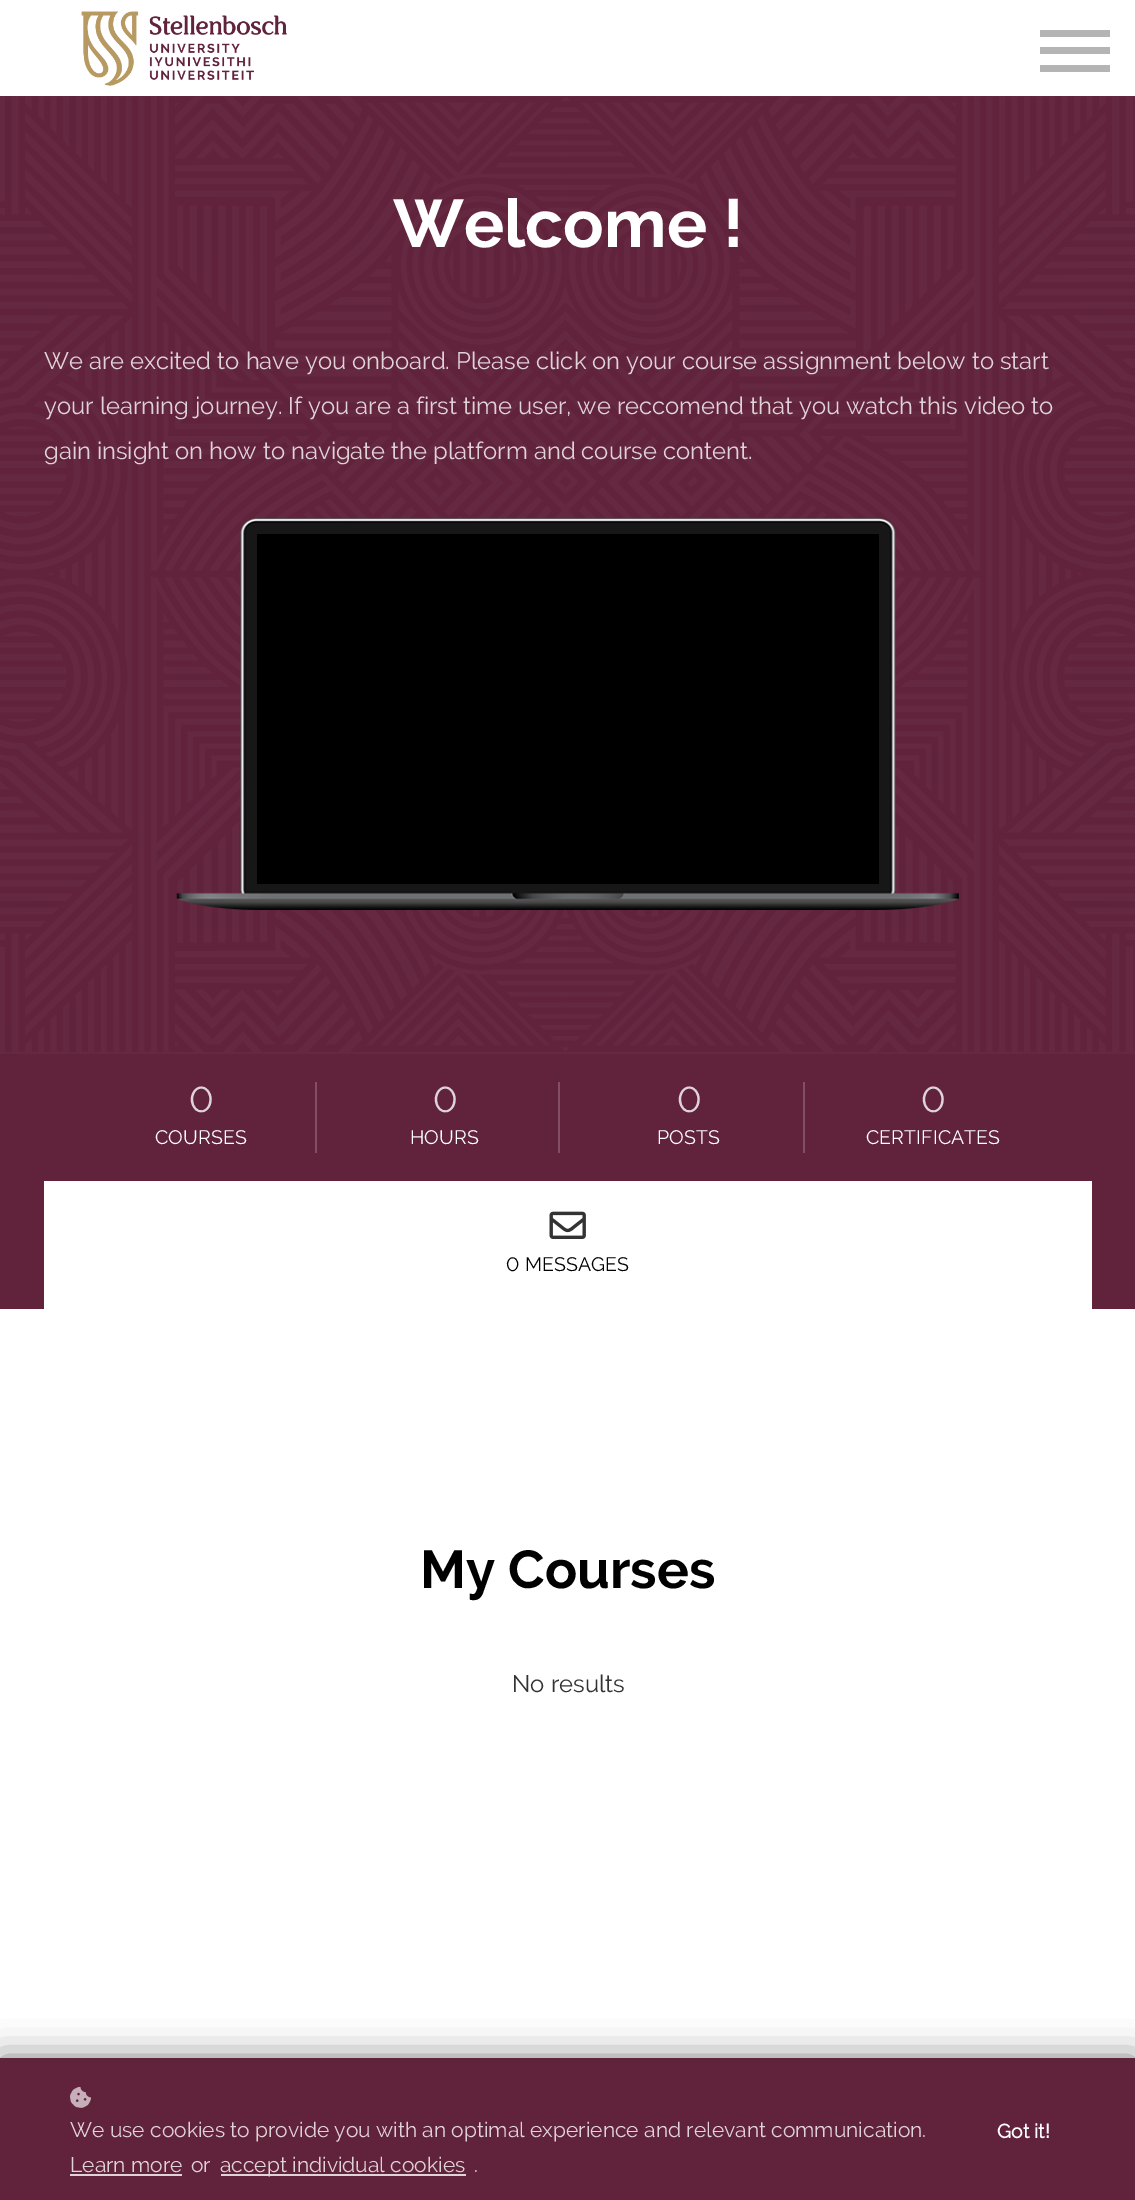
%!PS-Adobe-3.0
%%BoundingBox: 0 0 1135 2200
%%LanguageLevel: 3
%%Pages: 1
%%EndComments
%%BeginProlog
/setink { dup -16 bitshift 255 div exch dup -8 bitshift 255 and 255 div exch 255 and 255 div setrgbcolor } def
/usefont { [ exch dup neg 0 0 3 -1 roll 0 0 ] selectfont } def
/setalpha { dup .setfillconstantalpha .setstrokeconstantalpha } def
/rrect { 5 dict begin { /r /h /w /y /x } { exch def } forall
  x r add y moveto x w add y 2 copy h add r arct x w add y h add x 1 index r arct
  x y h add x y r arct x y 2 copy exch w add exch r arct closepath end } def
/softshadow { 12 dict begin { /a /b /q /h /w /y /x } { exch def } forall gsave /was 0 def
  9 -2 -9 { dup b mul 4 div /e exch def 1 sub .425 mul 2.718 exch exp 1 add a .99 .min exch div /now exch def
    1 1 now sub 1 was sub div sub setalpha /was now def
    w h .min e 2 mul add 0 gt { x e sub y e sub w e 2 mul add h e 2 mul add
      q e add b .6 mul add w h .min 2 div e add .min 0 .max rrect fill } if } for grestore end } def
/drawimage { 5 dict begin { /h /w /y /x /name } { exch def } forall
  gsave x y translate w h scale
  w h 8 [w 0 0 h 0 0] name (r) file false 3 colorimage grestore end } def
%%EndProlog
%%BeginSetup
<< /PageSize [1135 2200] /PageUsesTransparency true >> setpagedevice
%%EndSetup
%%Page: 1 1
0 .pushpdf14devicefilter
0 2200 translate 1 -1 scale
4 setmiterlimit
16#FFFFFF setink
0 0 1135 2200 rectfill
(img1.raw) 81 11 206 75 drawimage
[
    [1040 65 70 7 16#B4B4B4]
    [1040 30 70 7 16#B4B4B4]
    [1040 47 70 7 16#B4B4B4]
    [0 96 1135 958 16#652841]
] { aload pop setink rectfill } forall
(img2.raw) 0 96 1135 956 drawimage
/Raleway-Bold 67.25 usefont
16#FFFFFF setink
393 247 moveto (Welcome !) show
/Raleway-Regular 23.8 usefont
16#E0D3D8 setink
[
    [(We are excited to have you onboard. Please click on your course assignment below to start) 44 369]
    [(your learning journey. If you are a first time user, we reccomend that you watch this video to) 44 414]
    [(gain insight on how to navigate the platform and course content.) 44 459]
] { aload pop moveto show } forall
(img3.raw) 176 518 783 392 drawimage
[
    [257 534 622 350 16#000000]
    [0 1054 1135 255 16#61223B]
    [315 1082 2 71 16#814E62]
] { aload pop setink rectfill } forall
/Raleway-Regular 36 usefont
16#E0D3D8 setink
189 1112 moveto (0) show
/Raleway-Regular 19.5 usefont
16#FFFFFF setink
155 1144 moveto 0.1 0 (COURSES) ashow
16#814E62 setink
558 1082 2 71 rectfill
/Raleway-Regular 36 usefont
16#E0D3D8 setink
433 1112 moveto (0) show
/Raleway-Regular 19.5 usefont
16#FFFFFF setink
410 1144 moveto 0.1 0 (HOURS) ashow
16#814E62 setink
803 1082 2 71 rectfill
/Raleway-Regular 36 usefont
16#E0D3D8 setink
677 1112 moveto (0) show
/Raleway-Regular 19.5 usefont
16#FFFFFF setink
657 1144 moveto 0.1 0 (POSTS) ashow
/Raleway-Regular 36 usefont
16#E0D3D8 setink
921 1112 moveto (0) show
/Raleway-Regular 19.5 usefont
16#FFFFFF setink
866 1144 moveto 0.1 0 (CERTIFICATES) ashow
44 1181 1048 128 rectfill
(img4.raw) 549 1211 37 28 drawimage
16#000000 setink
506 1271 moveto 0.1 0 (0 MESSAGES) ashow
/Raleway-Bold 53.25 usefont
420 1588 moveto (My Courses) show
/Raleway-Regular 23.8 usefont
16#333333 setink
512 1692 moveto (No results) show
16#000000 setink
0 2058 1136 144 0 17.5 0.5 softshadow
16#61223B setink
0 2058 1135 142 rectfill
(img5.raw) 70 2086 21 22 drawimage
/Raleway-Regular 21 usefont
16#E0D3D8 setink
70 2137 moveto (We use cookies to provide you with an optimal experience and relevant communication.) show
70 2172 moveto (Learn more) show
16#DFD3D8 setink
70 2174 112 2 rectfill
16#E0D3D8 setink
191 2172 moveto (or) show
16#DFD3D8 setink
221 2174 245 2 rectfill
16#E0D3D8 setink
220 2172 moveto (accept individual cookies) show
474 2172 moveto (.) show
/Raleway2-Bold 19.5 usefont
16#FFFFFF setink
997 2138 moveto (Got it!) show
.poppdf14devicefilter showpage
%%EOF
